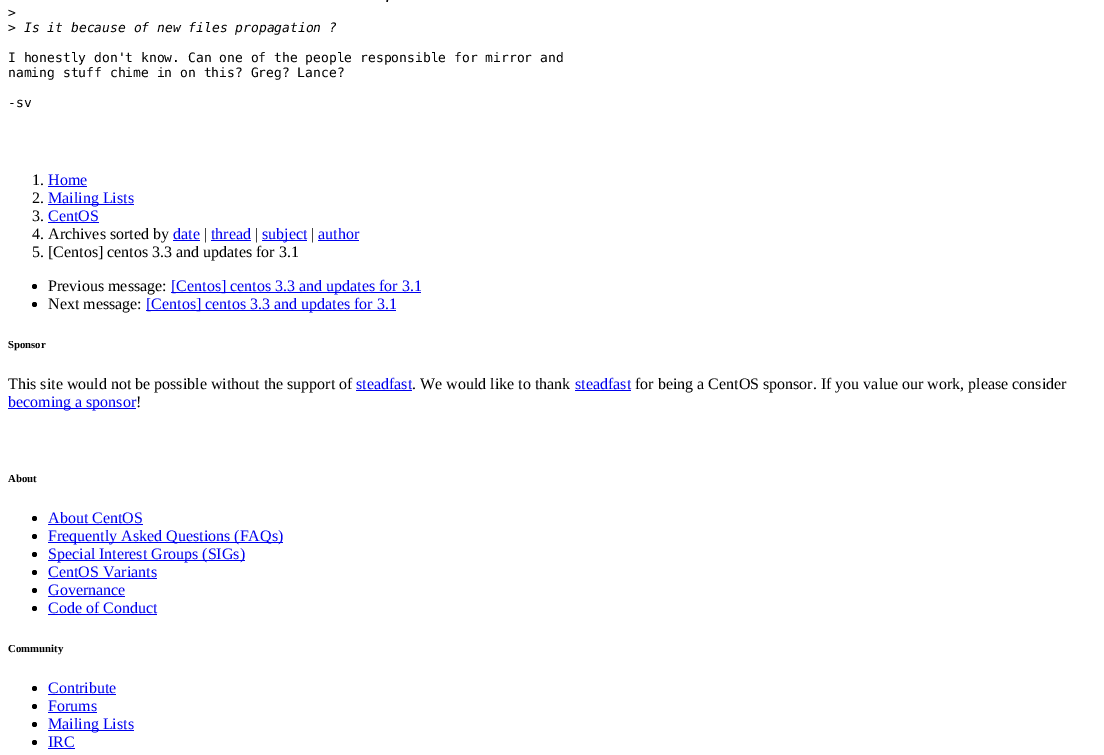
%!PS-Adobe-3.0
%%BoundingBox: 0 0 1104 755
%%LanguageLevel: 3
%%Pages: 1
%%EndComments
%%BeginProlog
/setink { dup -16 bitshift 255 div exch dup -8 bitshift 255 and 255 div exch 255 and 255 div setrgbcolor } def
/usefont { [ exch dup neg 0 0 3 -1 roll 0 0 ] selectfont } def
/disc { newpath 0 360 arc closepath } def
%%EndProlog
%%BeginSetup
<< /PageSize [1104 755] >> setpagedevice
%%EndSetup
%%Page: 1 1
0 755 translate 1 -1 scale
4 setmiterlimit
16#FFFFFF setink
0 0 1104 755 rectfill
/DejaVuSansMono-Italic 13 usefont
16#000000 setink
384 2 moveto (.) show
/DejaVuSansMono-Regular 13 usefont
8 17 moveto (>) show
8 32 moveto (>) show
/DejaVuSansMono-Italic 13 usefont
24 32 moveto (Is it because of new files propagation ?) show
/DejaVuSansMono-Regular 13 usefont
[
    [(I honestly don't know. Can one of the people responsible for mirror and) 8 62]
    [(naming stuff chime in on this? Greg? Lance?) 8 77]
    [(-sv) 8 107]
] { aload pop moveto show } forall
/LiberationSerif-Regular 16 usefont
32 185 moveto (1.) show
16#0000EE setink
48 185 moveto (Home) show
48 186 39 1 rectfill
16#000000 setink
32 203 moveto (2.) show
16#0000EE setink
48 204 86 1 rectfill
48 203 moveto (Mailing Lists) show
16#000000 setink
32 221 moveto (3.) show
16#0000EE setink
48 221 moveto (CentOS) show
48 222 51 1 rectfill
16#000000 setink
32 239 moveto (4. Archives sorted by) show
16#0000EE setink
173 239 moveto (date) show
173 240 27 1 rectfill
16#000000 setink
204 239 moveto (|) show
16#0000EE setink
211 239 moveto (thread) show
211 240 40 1 rectfill
16#000000 setink
255 239 moveto (|) show
16#0000EE setink
262 240 45 1 rectfill
262 239 moveto (subject) show
16#000000 setink
311 239 moveto (|) show
16#0000EE setink
318 239 moveto (author) show
318 240 41 1 rectfill
16#000000 setink
32 257 moveto (5. [Centos] centos 3.3 and updates for 3.1) show
34.5 286.5 2.5 disc fill
48 291 moveto (Previous message:) show
16#0000EE setink
171 292 250 1 rectfill
171 291 moveto ([Centos] centos 3.3 and updates for 3.1) show
16#000000 setink
34.5 304.5 2.5 disc fill
48 309 moveto (Next message:) show
16#0000EE setink
146 310 250 1 rectfill
146 309 moveto ([Centos] centos 3.3 and updates for 3.1) show
/LiberationSerif-Bold 10.75 usefont
16#000000 setink
8 348 moveto (Sponsor) show
/LiberationSerif-Regular 16 usefont
8 389 moveto (This site would not be possible without the support of) show
16#0000EE setink
356 389 moveto (steadfast) show
356 390 56 1 rectfill
16#000000 setink
412 389 moveto (. We would like to thank) show
16#0000EE setink
575 389 moveto (steadfast) show
575 390 56 1 rectfill
16#000000 setink
635 389 moveto (for being a CentOS sponsor. If you value our work, please consider) show
16#0000EE setink
8 408 128 1 rectfill
8 407 moveto (becoming a sponsor) show
16#000000 setink
136 407 moveto (!) show
/LiberationSerif-Bold 10.75 usefont
8 482 moveto (About) show
34.5 518.5 2.5 disc fill
/LiberationSerif-Regular 16 usefont
16#0000EE setink
48 523 moveto (About CentOS) show
48 524 95 1 rectfill
16#000000 setink
34.5 536.5 2.5 disc fill
16#0000EE setink
48 542 235 1 rectfill
48 541 moveto (Frequently Asked Questions \(FAQs\)) show
16#000000 setink
34.5 554.5 2.5 disc fill
16#0000EE setink
48 560 197 1 rectfill
48 559 moveto (Special Interest Groups \(SIGs\)) show
16#000000 setink
34.5 572.5 2.5 disc fill
16#0000EE setink
48 577 moveto (CentOS Variants) show
48 578 109 1 rectfill
16#000000 setink
34.5 590.5 2.5 disc fill
16#0000EE setink
48 595 moveto (Governance) show
48 596 77 1 rectfill
16#000000 setink
34.5 608.5 2.5 disc fill
16#0000EE setink
48 613 moveto (Code of Conduct) show
48 614 109 1 rectfill
/LiberationSerif-Bold 10.75 usefont
16#000000 setink
8 652 moveto (Community) show
34.5 688.5 2.5 disc fill
/LiberationSerif-Regular 16 usefont
16#0000EE setink
48 693 moveto (Contribute) show
48 694 68 1 rectfill
16#000000 setink
34.5 706.5 2.5 disc fill
16#0000EE setink
48 711 moveto (Forums) show
48 712 49 1 rectfill
16#000000 setink
34.5 724.5 2.5 disc fill
16#0000EE setink
48 730 86 1 rectfill
48 729 moveto (Mailing Lists) show
16#000000 setink
34.5 742.5 2.5 disc fill
16#0000EE setink
48 747 moveto (IRC) show
48 748 27 1 rectfill
showpage
%%EOF
